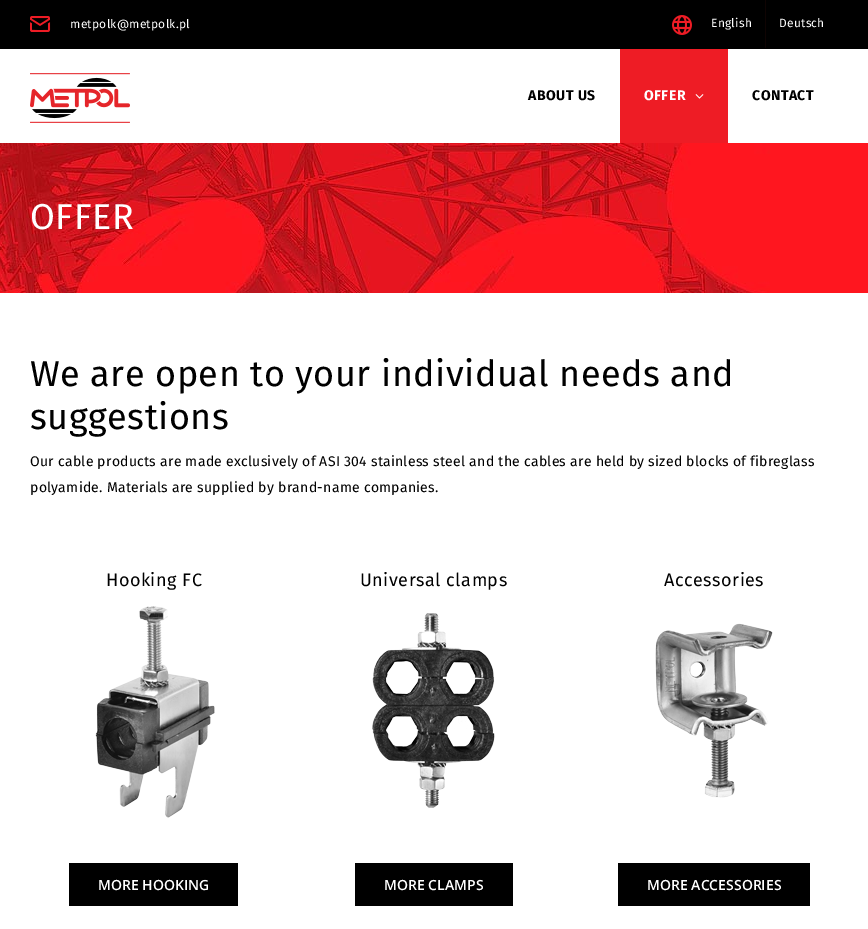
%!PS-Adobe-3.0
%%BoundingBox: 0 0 868 929
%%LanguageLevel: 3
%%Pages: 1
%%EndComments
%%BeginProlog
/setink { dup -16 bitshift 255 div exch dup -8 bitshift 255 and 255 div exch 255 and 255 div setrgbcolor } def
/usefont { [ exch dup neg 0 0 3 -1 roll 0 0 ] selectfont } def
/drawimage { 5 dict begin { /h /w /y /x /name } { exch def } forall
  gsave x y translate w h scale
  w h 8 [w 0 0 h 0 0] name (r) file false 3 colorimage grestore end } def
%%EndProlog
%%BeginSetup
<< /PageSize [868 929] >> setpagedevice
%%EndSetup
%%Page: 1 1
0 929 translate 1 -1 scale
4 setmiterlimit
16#FFFFFF setink
0 0 868 929 rectfill
16#000000 setink
0 0 868 49 rectfill
(img1.raw) 30 16 21 16 drawimage
/FiraSans-Regular 12 usefont
16#FFFFFF setink
70 28 moveto 0.25 0 (metpolk@metpolk.pl) ashow
(img2.raw) 672 15 20 20 drawimage
711 27 moveto 0.25 0 (English) ashow
16#0F0403 setink
765 0 1 48 rectfill
16#FFFFFF setink
779 27 moveto 0.25 0 (Deutsch) ashow
(img3.raw) 30 73 100 50 drawimage
/FiraSans-Bold 14 usefont
16#000000 setink
528 100 moveto 0.5 0 (ABOUT US) ashow
16#EE1C25 setink
620 49 108 94 rectfill
16#FFFFFF setink
644 100 moveto 0.5 0 (OFFER) ashow
(img4.raw) 695 94 9 5 drawimage
16#000000 setink
752 100 moveto 0.5 0 (CONTACT) ashow
(img5.raw) 0 143 868 150 drawimage
/FiraSans-Regular 36 usefont
16#FFFFFF setink
30 229 moveto 0.5 0 (OFFER) ashow
16#000000 setink
30 386 moveto 0.5 0 (We are open to your individual needs and) ashow
30 429 moveto 0.5 0 (suggestions) ashow
/FiraSans-Regular 14 usefont
30 466 moveto 0.25 0 (Our cable products are made exclusively of ASI 304 stainless steel and the cables are held by sized blocks of fibreglass) ashow
30 492 moveto 0.25 0 (polyamide. Materials are supplied by brand-name companies.) ashow
/FiraSans-Regular 18 usefont
106 586 moveto 0.5 0 (Hooking FC) ashow
(img6.raw) 95 606 120 212 drawimage
69 863 169 43 rectfill
/OpenSans-SemiBold 14 usefont
16#FFFFFF setink
98 890 moveto (MORE HOOKING) show
/FiraSans-Regular 18 usefont
16#000000 setink
360 586 moveto 0.5 0 (Universal clamps) ashow
(img7.raw) 372 613 123 195 drawimage
355 863 158 43 rectfill
/OpenSans-SemiBold 14 usefont
16#FFFFFF setink
384 890 moveto (MORE CLAMPS) show
/FiraSans-Regular 18 usefont
16#000000 setink
664 586 moveto 0.5 0 (Accessories) ashow
(img8.raw) 655 623 118 175 drawimage
618 863 192 43 rectfill
/OpenSans-SemiBold 14 usefont
16#FFFFFF setink
647 890 moveto (MORE ACCESSORIES) show
showpage
%%EOF
